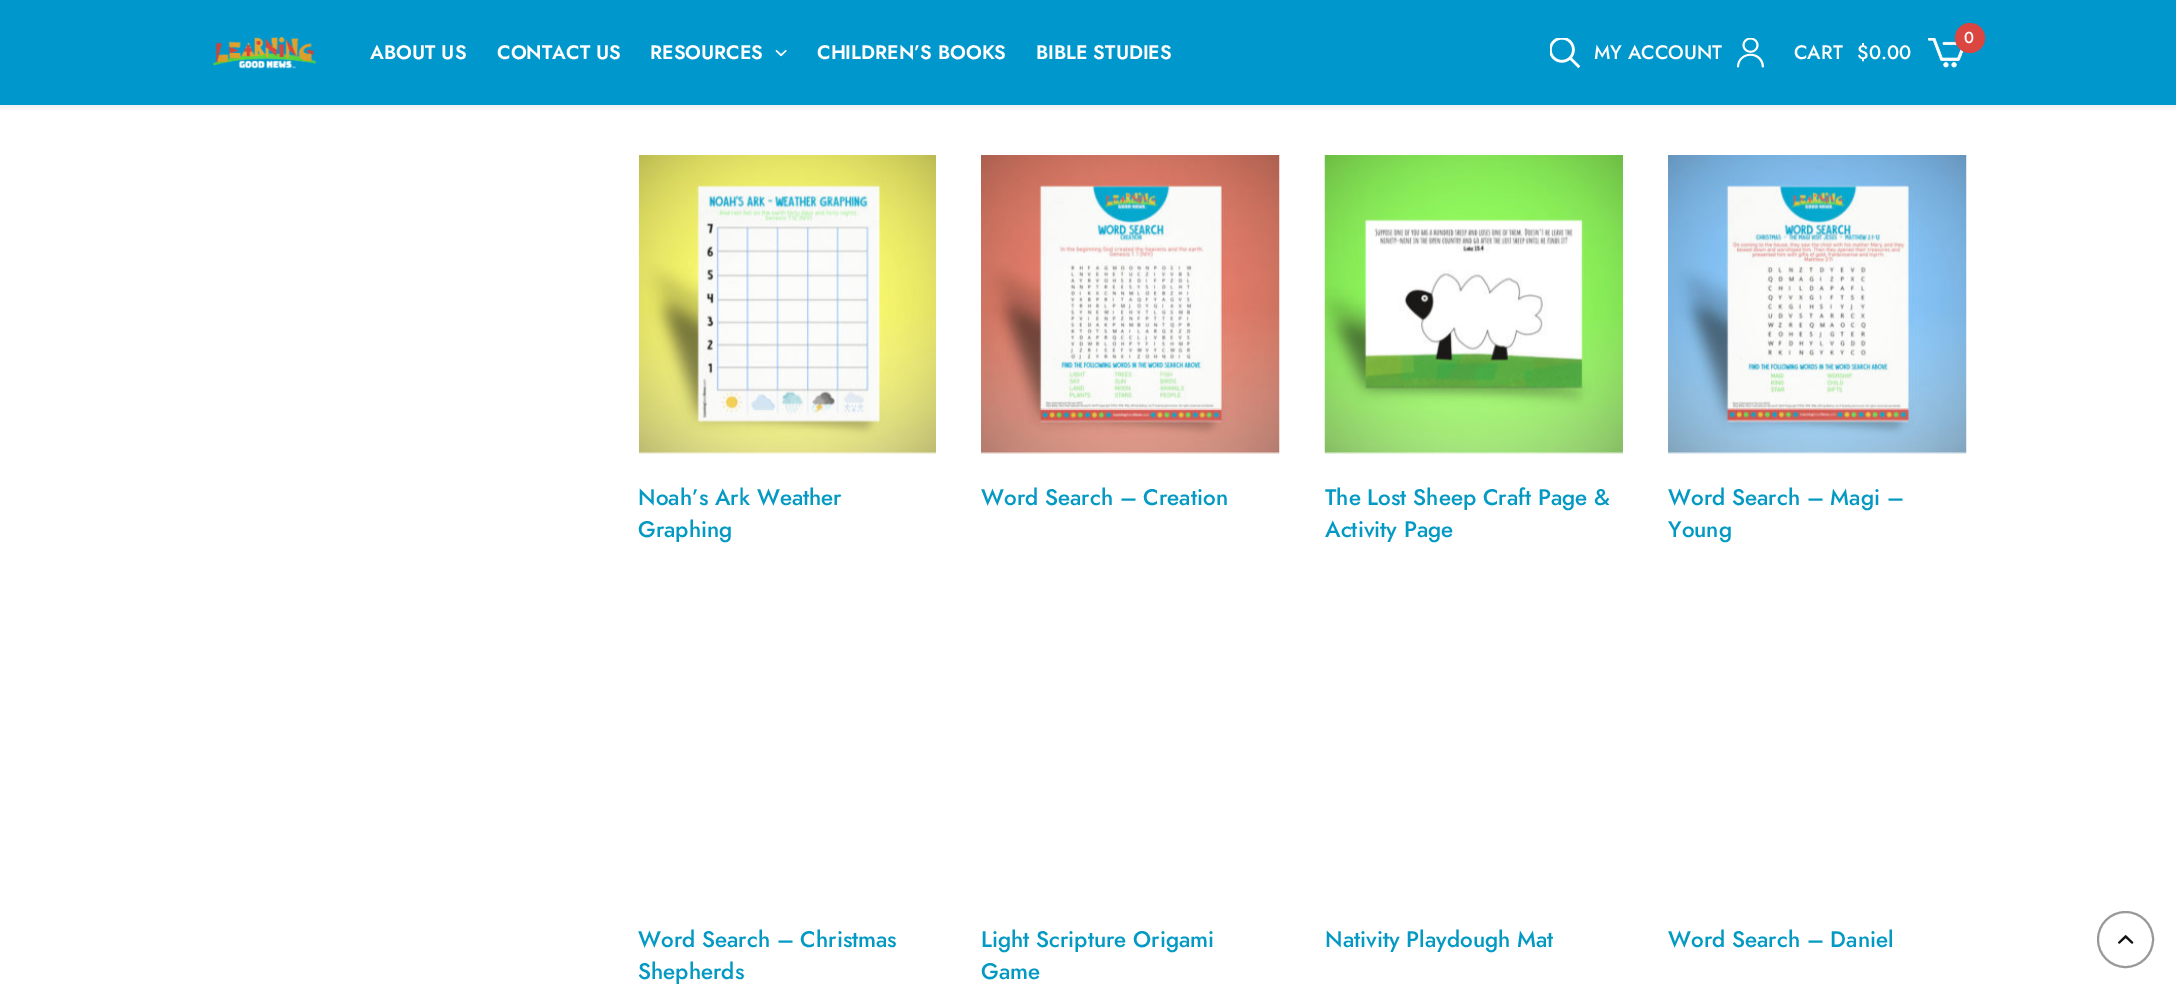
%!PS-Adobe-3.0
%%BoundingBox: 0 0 2176 990
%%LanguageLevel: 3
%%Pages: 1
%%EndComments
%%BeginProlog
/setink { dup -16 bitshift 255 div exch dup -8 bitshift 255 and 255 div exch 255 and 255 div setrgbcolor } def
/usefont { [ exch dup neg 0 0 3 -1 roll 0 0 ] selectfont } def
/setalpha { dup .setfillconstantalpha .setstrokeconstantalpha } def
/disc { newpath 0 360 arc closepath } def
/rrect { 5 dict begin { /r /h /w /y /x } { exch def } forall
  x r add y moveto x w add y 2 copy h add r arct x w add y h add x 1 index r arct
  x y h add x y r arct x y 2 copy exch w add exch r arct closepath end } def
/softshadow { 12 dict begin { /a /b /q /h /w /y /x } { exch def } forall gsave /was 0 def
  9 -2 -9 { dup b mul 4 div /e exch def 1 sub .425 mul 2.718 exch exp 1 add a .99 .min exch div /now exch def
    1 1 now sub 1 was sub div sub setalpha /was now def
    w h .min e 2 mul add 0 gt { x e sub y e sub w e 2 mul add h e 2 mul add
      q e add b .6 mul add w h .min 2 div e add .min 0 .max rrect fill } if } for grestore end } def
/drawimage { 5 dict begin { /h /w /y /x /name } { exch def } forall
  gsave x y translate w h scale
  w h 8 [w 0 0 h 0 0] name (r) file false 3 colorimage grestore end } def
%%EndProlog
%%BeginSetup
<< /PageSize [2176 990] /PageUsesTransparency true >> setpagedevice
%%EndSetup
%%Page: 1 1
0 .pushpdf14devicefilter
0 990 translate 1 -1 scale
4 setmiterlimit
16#FFFFFF setink
0 0 2176 990 rectfill
16#0097CC setink
0 0 2176 105 rectfill
gsave
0 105 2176 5 rectclip
16#000000 setink
0 3 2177 105 0 4 0.07 softshadow
grestore
(img1.raw) 212 37 105 32 drawimage
/Jost-SemiBold 19.5 usefont
16#FFFFFF setink
[
    [(ABOUT US) 370 59]
    [(CONTACT US) 497 59]
    [(RESOURCES) 650 59]
] { aload pop moveto show } forall
(img2.raw) 775 50 12 7 drawimage
817 59 moveto (CHILDREN’S BOOKS) show
1036 59 moveto (BIBLE STUDIES) show
(img3.raw) 1550 38 30 30 drawimage
/Jost-Medium 19.5 usefont
1594 59 moveto (MY ACCOUNT) show
(img4.raw) 1737 38 27 30 drawimage
(img5.raw) 1928 38 36 30 drawimage
16#DB4640 setink
1970 38 15 disc fill
/Jost-Medium 16 usefont
16#FFFFFF setink
1964 43 moveto (0) show
/Jost-Medium 19.5 usefont
1794 59 moveto (CART) show
1857 59 moveto ($0.00) show
(img6.raw) 639 155 297 299 drawimage
/Jost-Medium 22.5 usefont
16#0499C3 setink
638 505 moveto (Noah’s Ark Weather) show
638 537 moveto (Graphing) show
(img7.raw) 981 155 299 299 drawimage
981 505 moveto (Word Search – Creation) show
(img8.raw) 1324 155 299 299 drawimage
1325 505 moveto (The Lost Sheep Craft Page &) show
1325 537 moveto (Activity Page) show
(img9.raw) 1668 155 299 299 drawimage
[
    [(Word Search – Magi –) 1668 505]
    [(Young) 1668 537]
    [(Word Search – Christmas) 638 947]
    [(Shepherds) 638 979]
    [(Light Scripture Origami) 981 947]
    [(Game) 981 979]
    [(Nativity Playdough Mat) 1325 947]
    [(Word Search – Daniel) 1668 947]
] { aload pop moveto show } forall
16#999999 setink
2 setlinewidth
2125.5 939.5 27.5 disc stroke
(img10.raw) 2118 935 16 9 drawimage
.poppdf14devicefilter showpage
%%EOF
